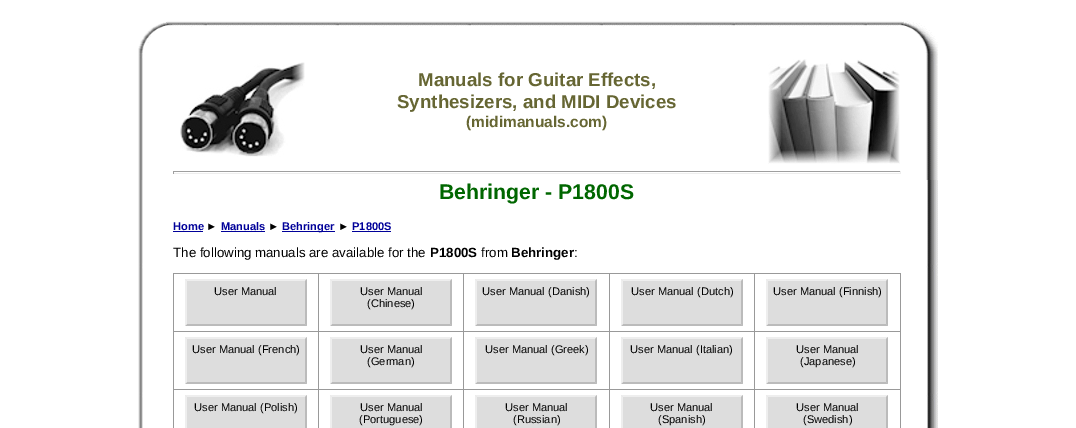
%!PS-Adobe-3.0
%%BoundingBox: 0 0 1076 428
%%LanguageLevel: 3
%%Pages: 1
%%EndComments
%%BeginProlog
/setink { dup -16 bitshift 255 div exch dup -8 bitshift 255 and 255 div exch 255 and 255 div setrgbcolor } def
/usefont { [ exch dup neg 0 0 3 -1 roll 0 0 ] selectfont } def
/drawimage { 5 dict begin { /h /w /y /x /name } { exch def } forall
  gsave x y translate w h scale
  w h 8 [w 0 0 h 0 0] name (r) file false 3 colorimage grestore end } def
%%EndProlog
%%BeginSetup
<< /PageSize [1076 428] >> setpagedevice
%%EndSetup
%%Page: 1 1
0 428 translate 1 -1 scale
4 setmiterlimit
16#FFFFFF setink
0 0 1076 428 rectfill
(img1.raw) 138 21 35 34 drawimage
(img2.raw) 173 21 728 6 drawimage
(img3.raw) 901 21 37 34 drawimage
(img4.raw) 138 55 5 125 drawimage
(img5.raw) 180 62 125 95 drawimage
/LiberationSans-Bold 18.7 usefont
16#666633 setink
418 86 moveto (Manuals for Guitar Effects,) show
397 108 moveto (Synthesizers, and MIDI Devices) show
/LiberationSans-Bold 15.5 usefont
466 127 moveto (\(midimanuals.com\)) show
(img6.raw) 768 59 132 105 drawimage
[
    [173 171 728 1 16#9F9F9F]
    [900 171 1 3 16#EEEEEE]
    [173 173 728 1 16#EEEEEE]
    [173 171 1 3 16#9F9F9F]
] { aload pop setink rectfill } forall
(img7.raw) 926 55 12 125 drawimage
/LiberationSans-Regular 13.3 usefont
16#000000 setink
173 257 moveto (The following manuals are available for the) show
(img8.raw) 138 180 35 248 drawimage
/LiberationSans-Bold 21.25 usefont
16#006600 setink
439 199 moveto (Behringer - P1800S) show
/LiberationSans-Bold 11.1 usefont
16#000099 setink
173 230 moveto (Home) show
173 231 30 1 rectfill
16#000000 setink
206 230 moveto (►) show
16#000099 setink
221 230 moveto (Manuals) show
221 231 44 1 rectfill
16#000000 setink
268 230 moveto (►) show
16#000099 setink
282 231 53 1 rectfill
282 230 moveto (Behringer) show
16#000000 setink
338 230 moveto (►) show
16#000099 setink
352 230 moveto (P1800S) show
352 231 39 1 rectfill
/LiberationSans-Bold 13.3 usefont
16#000000 setink
430 257 moveto (P1800S) show
/LiberationSans-Regular 13.3 usefont
481 257 moveto (from) show
/LiberationSans-Bold 13.3 usefont
511 257 moveto (Behringer) show
/LiberationSans-Regular 13.3 usefont
574 257 moveto (:) show
[
    [754 273 147 1 16#999999]
    [754 331 147 1 16#999999]
    [754 389 147 1 16#999999]
    [754 389 1 39 16#999999]
    [609 389 146 1 16#999999]
    [754 331 1 59 16#999999]
    [609 331 146 1 16#999999]
    [754 273 1 59 16#999999]
    [609 273 146 1 16#999999]
    [609 389 1 39 16#999999]
    [463 389 147 1 16#999999]
    [609 331 1 59 16#999999]
    [463 331 147 1 16#999999]
    [609 273 1 59 16#999999]
    [463 273 147 1 16#999999]
    [463 389 1 39 16#999999]
    [318 389 146 1 16#999999]
    [463 331 1 59 16#999999]
    [318 331 146 1 16#999999]
    [463 273 1 59 16#999999]
    [318 273 146 1 16#999999]
    [318 389 1 39 16#999999]
    [173 389 146 1 16#999999]
    [318 331 1 59 16#999999]
    [173 331 146 1 16#999999]
    [318 273 1 59 16#999999]
    [173 273 146 1 16#999999]
    [173 389 1 39 16#999999]
    [173 331 1 59 16#999999]
    [173 273 1 59 16#999999]
    [185 279 122 47 16#DDDDDD]
] { aload pop setink rectfill } forall
16#EEEEEE setink
185 279 moveto 307 279 lineto 305 281 lineto 187 281 lineto closepath fill
16#BBBBBB setink
307 279 moveto 307 326 lineto 305 324 lineto 305 281 lineto closepath fill
307 326 moveto 185 326 lineto 187 324 lineto 305 324 lineto closepath fill
16#EEEEEE setink
185 326 moveto 185 279 lineto 187 281 lineto 187 324 lineto closepath fill
/LiberationSans-Regular 11.1 usefont
16#000000 setink
214 295 moveto (User Manual) show
16#DDDDDD setink
330 279 122 47 rectfill
16#EEEEEE setink
330 279 moveto 452 279 lineto 450 281 lineto 332 281 lineto closepath fill
16#BBBBBB setink
452 279 moveto 452 326 lineto 450 324 lineto 450 281 lineto closepath fill
452 326 moveto 330 326 lineto 332 324 lineto 450 324 lineto closepath fill
16#EEEEEE setink
330 326 moveto 330 279 lineto 332 281 lineto 332 324 lineto closepath fill
16#000000 setink
360 295 moveto (User Manual) show
367 307 moveto (\(Chinese\)) show
16#DDDDDD setink
475 279 122 47 rectfill
16#EEEEEE setink
475 279 moveto 597 279 lineto 595 281 lineto 477 281 lineto closepath fill
16#BBBBBB setink
597 279 moveto 597 326 lineto 595 324 lineto 595 281 lineto closepath fill
597 326 moveto 475 326 lineto 477 324 lineto 595 324 lineto closepath fill
16#EEEEEE setink
475 326 moveto 475 279 lineto 477 281 lineto 477 324 lineto closepath fill
16#000000 setink
482 295 moveto (User Manual \(Danish\)) show
16#DDDDDD setink
621 279 122 47 rectfill
16#EEEEEE setink
621 279 moveto 743 279 lineto 741 281 lineto 623 281 lineto closepath fill
16#BBBBBB setink
743 279 moveto 743 326 lineto 741 324 lineto 741 281 lineto closepath fill
743 326 moveto 621 326 lineto 623 324 lineto 741 324 lineto closepath fill
16#EEEEEE setink
621 326 moveto 621 279 lineto 623 281 lineto 623 324 lineto closepath fill
16#000000 setink
631 295 moveto (User Manual \(Dutch\)) show
[
    [900 389 1 39 16#999999]
    [900 331 1 59 16#999999]
    [900 273 1 59 16#999999]
    [766 279 122 47 16#DDDDDD]
] { aload pop setink rectfill } forall
16#EEEEEE setink
766 279 moveto 888 279 lineto 886 281 lineto 768 281 lineto closepath fill
16#BBBBBB setink
888 279 moveto 888 326 lineto 886 324 lineto 886 281 lineto closepath fill
888 326 moveto 766 326 lineto 768 324 lineto 886 324 lineto closepath fill
16#EEEEEE setink
766 326 moveto 766 279 lineto 768 281 lineto 768 324 lineto closepath fill
16#000000 setink
773 295 moveto (User Manual \(Finnish\)) show
16#DDDDDD setink
185 337 122 47 rectfill
16#EEEEEE setink
185 337 moveto 307 337 lineto 305 339 lineto 187 339 lineto closepath fill
16#BBBBBB setink
307 337 moveto 307 384 lineto 305 382 lineto 305 339 lineto closepath fill
307 384 moveto 185 384 lineto 187 382 lineto 305 382 lineto closepath fill
16#EEEEEE setink
185 384 moveto 185 337 lineto 187 339 lineto 187 382 lineto closepath fill
16#000000 setink
192 353 moveto (User Manual \(French\)) show
16#DDDDDD setink
330 337 122 47 rectfill
16#EEEEEE setink
330 337 moveto 452 337 lineto 450 339 lineto 332 339 lineto closepath fill
16#BBBBBB setink
452 337 moveto 452 384 lineto 450 382 lineto 450 339 lineto closepath fill
452 384 moveto 330 384 lineto 332 382 lineto 450 382 lineto closepath fill
16#EEEEEE setink
330 384 moveto 330 337 lineto 332 339 lineto 332 382 lineto closepath fill
16#000000 setink
360 353 moveto (User Manual) show
367 365 moveto (\(German\)) show
16#DDDDDD setink
475 337 122 47 rectfill
16#EEEEEE setink
475 337 moveto 597 337 lineto 595 339 lineto 477 339 lineto closepath fill
16#BBBBBB setink
597 337 moveto 597 384 lineto 595 382 lineto 595 339 lineto closepath fill
597 384 moveto 475 384 lineto 477 382 lineto 595 382 lineto closepath fill
16#EEEEEE setink
475 384 moveto 475 337 lineto 477 339 lineto 477 382 lineto closepath fill
16#000000 setink
485 353 moveto (User Manual \(Greek\)) show
16#DDDDDD setink
621 337 122 47 rectfill
16#EEEEEE setink
621 337 moveto 743 337 lineto 741 339 lineto 623 339 lineto closepath fill
16#BBBBBB setink
743 337 moveto 743 384 lineto 741 382 lineto 741 339 lineto closepath fill
743 384 moveto 621 384 lineto 623 382 lineto 741 382 lineto closepath fill
16#EEEEEE setink
621 384 moveto 621 337 lineto 623 339 lineto 623 382 lineto closepath fill
16#000000 setink
630 353 moveto (User Manual \(Italian\)) show
16#DDDDDD setink
766 337 122 47 rectfill
16#EEEEEE setink
766 337 moveto 888 337 lineto 886 339 lineto 768 339 lineto closepath fill
16#BBBBBB setink
888 337 moveto 888 384 lineto 886 382 lineto 886 339 lineto closepath fill
888 384 moveto 766 384 lineto 768 382 lineto 886 382 lineto closepath fill
16#EEEEEE setink
766 384 moveto 766 337 lineto 768 339 lineto 768 382 lineto closepath fill
16#000000 setink
796 353 moveto (User Manual) show
800 365 moveto (\(Japanese\)) show
16#DDDDDD setink
185 395 122 33 rectfill
16#EEEEEE setink
185 395 moveto 307 395 lineto 305 397 lineto 187 397 lineto closepath fill
16#BBBBBB setink
307 395 moveto 307 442 lineto 305 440 lineto 305 397 lineto closepath fill
16#EEEEEE setink
185 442 moveto 185 395 lineto 187 397 lineto 187 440 lineto closepath fill
16#000000 setink
194 411 moveto (User Manual \(Polish\)) show
16#DDDDDD setink
330 395 122 33 rectfill
16#EEEEEE setink
330 395 moveto 452 395 lineto 450 397 lineto 332 397 lineto closepath fill
16#BBBBBB setink
452 395 moveto 452 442 lineto 450 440 lineto 450 397 lineto closepath fill
16#EEEEEE setink
330 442 moveto 330 395 lineto 332 397 lineto 332 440 lineto closepath fill
16#000000 setink
360 411 moveto (User Manual) show
359 423 moveto (\(Portuguese\)) show
16#DDDDDD setink
475 395 122 33 rectfill
16#EEEEEE setink
475 395 moveto 597 395 lineto 595 397 lineto 477 397 lineto closepath fill
16#BBBBBB setink
597 395 moveto 597 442 lineto 595 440 lineto 595 397 lineto closepath fill
16#EEEEEE setink
475 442 moveto 475 395 lineto 477 397 lineto 477 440 lineto closepath fill
16#000000 setink
505 411 moveto (User Manual) show
513 423 moveto (\(Russian\)) show
16#DDDDDD setink
621 395 122 33 rectfill
16#EEEEEE setink
621 395 moveto 743 395 lineto 741 397 lineto 623 397 lineto closepath fill
16#BBBBBB setink
743 395 moveto 743 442 lineto 741 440 lineto 741 397 lineto closepath fill
16#EEEEEE setink
621 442 moveto 621 395 lineto 623 397 lineto 623 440 lineto closepath fill
16#000000 setink
650 411 moveto (User Manual) show
658 423 moveto (\(Spanish\)) show
16#DDDDDD setink
766 395 122 33 rectfill
16#EEEEEE setink
766 395 moveto 888 395 lineto 886 397 lineto 768 397 lineto closepath fill
16#BBBBBB setink
888 395 moveto 888 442 lineto 886 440 lineto 886 397 lineto closepath fill
16#EEEEEE setink
766 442 moveto 766 395 lineto 768 397 lineto 768 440 lineto closepath fill
16#000000 setink
796 411 moveto (User Manual) show
803 423 moveto (\(Swedish\)) show
(img9.raw) 926 180 12 248 drawimage
showpage
%%EOF
